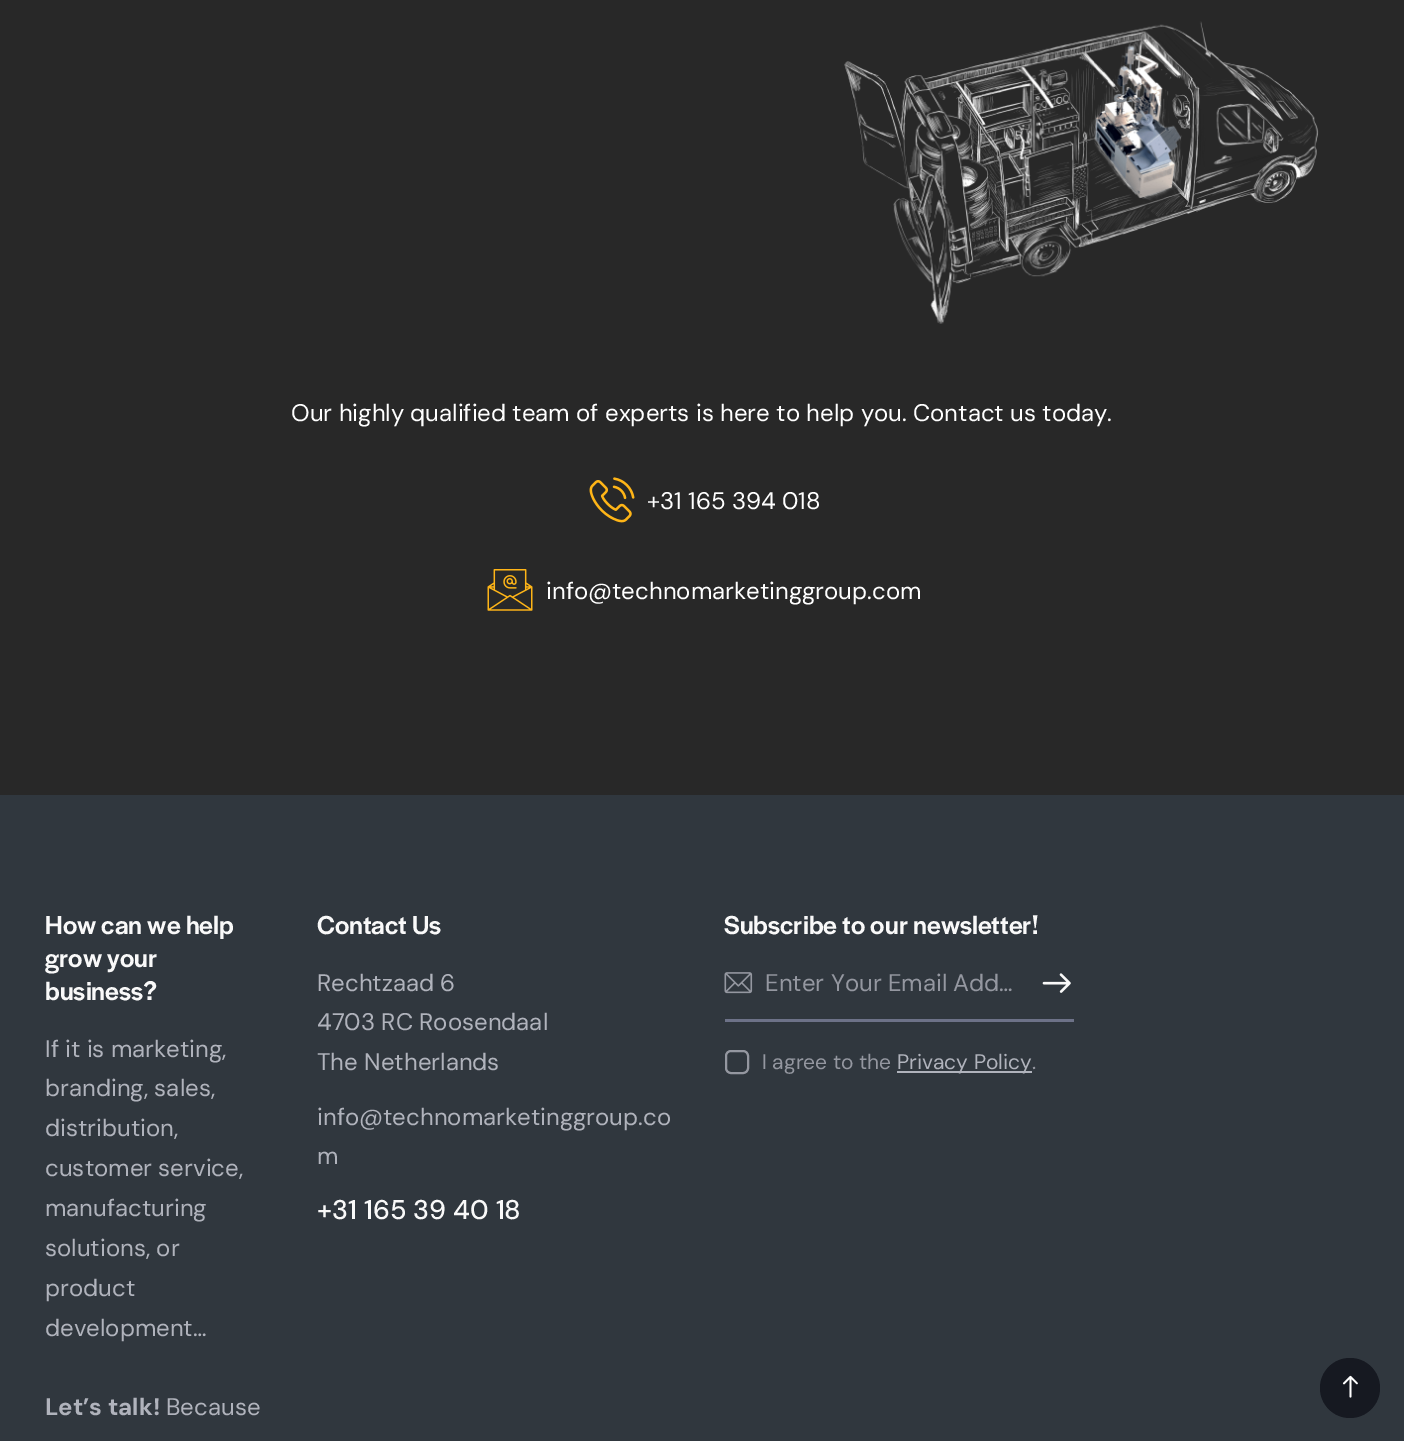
%!PS-Adobe-3.0
%%BoundingBox: 0 0 1404 1441
%%LanguageLevel: 3
%%Pages: 1
%%EndComments
%%BeginProlog
/setink { dup -16 bitshift 255 div exch dup -8 bitshift 255 and 255 div exch 255 and 255 div setrgbcolor } def
/usefont { [ exch dup neg 0 0 3 -1 roll 0 0 ] selectfont } def
/disc { newpath 0 360 arc closepath } def
/rrect { 5 dict begin { /r /h /w /y /x } { exch def } forall
  x r add y moveto x w add y 2 copy h add r arct x w add y h add x 1 index r arct
  x y h add x y r arct x y 2 copy exch w add exch r arct closepath end } def
/drawimage { 5 dict begin { /h /w /y /x /name } { exch def } forall
  gsave x y translate w h scale
  w h 8 [w 0 0 h 0 0] name (r) file false 3 colorimage grestore end } def
%%EndProlog
%%BeginSetup
<< /PageSize [1404 1441] >> setpagedevice
%%EndSetup
%%Page: 1 1
0 1441 translate 1 -1 scale
4 setmiterlimit
16#282828 setink
0 0 1404 1441 rectfill
(img1.raw) 844 21 475 303 drawimage
/DMSans-Regular 24 usefont
16#FFFFFF setink
291 421 moveto (Our highly qualified team of experts is here to help you. Contact us today.) show
(img2.raw) 589 477 46 46 drawimage
647 509 moveto (+31 165 394 018) show
(img3.raw) 487 569 46 42 drawimage
546 599 moveto (info@technomarketinggroup.com) show
16#30373E setink
0 795 1404 646 rectfill
/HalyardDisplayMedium-Medium 27 usefont
16#F9F9F9 setink
[
    [(How can we help) 45 934]
    [(grow your) 45 967]
    [(business?) 45 1000]
] { aload pop moveto show } forall
/DMSans-Regular 24 usefont
16#B0B3BC setink
[
    [(If it is marketing,) 45 1057]
    [(branding, sales,) 45 1096]
    [(distribution,) 45 1136]
    [(customer service,) 45 1176]
    [(manufacturing) 45 1216]
    [(solutions, or) 45 1256]
    [(product) 45 1296]
    [(development…) 45 1336]
] { aload pop moveto show } forall
/DMSans-Bold 24 usefont
45 1415 moveto (Let’s talk!) show
/DMSans-Regular 24 usefont
166 1415 moveto (Because) show
/HalyardDisplayMedium-Medium 27 usefont
16#F9F9F9 setink
317 934 moveto (Contact Us) show
/DMSans-Regular 24 usefont
16#B0B3BC setink
[
    [(Rechtzaad 6) 317 991]
    [(4703 RC Roosendaal) 317 1030]
    [(The Netherlands) 317 1070]
    [(info@technomarketinggroup.co) 317 1125]
    [(m) 317 1164]
] { aload pop moveto show } forall
/DMSans-Medium 27 usefont
16#F9F9F9 setink
317 1219 moveto (+31 165 39 40 18) show
/HalyardDisplayMedium-Medium 27 usefont
724 934 moveto (Subscribe to our newsletter!) show
(img4.raw) 724 972 29 22 drawimage
16#6D7288 setink
725 1019 349 3 rectfill
/DMSans-Regular 24 usefont
16#9497A0 setink
765 991 moveto (Enter Your Email Add…) show
(img5.raw) 1042 973 29 20 drawimage
2 setlinewidth
726 1051 22 22 5 rrect stroke
/DMSans-Regular 21 usefont
762 1069 moveto (I agree to the) show
16#B0B3BC setink
897 1071 135 2 rectfill
897 1069 moveto (Privacy Policy) show
16#9497A0 setink
1032 1069 moveto (.) show
16#161921 setink
1350 1388 30 disc fill
(img6.raw) 1342 1375 16 23 drawimage
showpage
%%EOF
